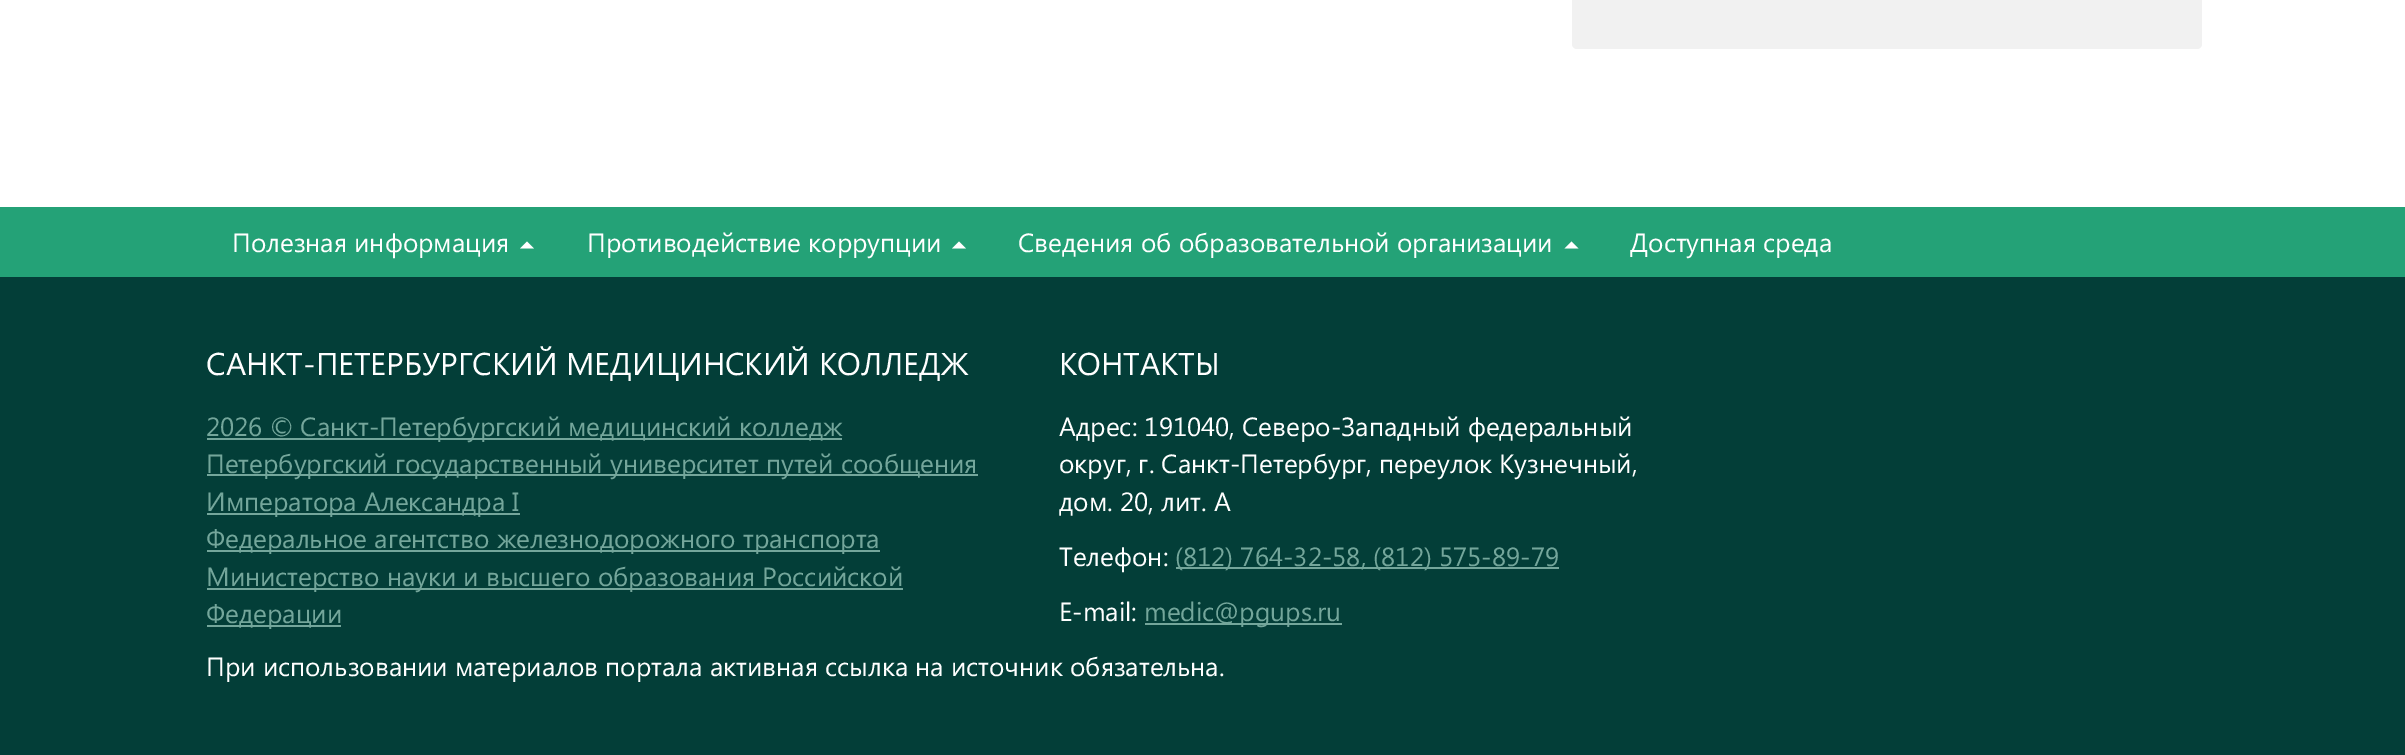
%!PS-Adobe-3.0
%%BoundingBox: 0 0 2405 755
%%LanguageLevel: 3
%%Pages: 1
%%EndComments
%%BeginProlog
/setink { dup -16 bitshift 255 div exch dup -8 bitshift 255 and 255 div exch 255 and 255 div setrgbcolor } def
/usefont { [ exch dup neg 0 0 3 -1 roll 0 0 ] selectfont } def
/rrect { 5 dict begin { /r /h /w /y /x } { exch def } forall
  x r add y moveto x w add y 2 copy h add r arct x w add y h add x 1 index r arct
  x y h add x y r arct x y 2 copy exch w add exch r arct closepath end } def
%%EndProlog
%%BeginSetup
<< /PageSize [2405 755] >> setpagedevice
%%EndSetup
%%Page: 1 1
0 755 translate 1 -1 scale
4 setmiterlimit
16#FFFFFF setink
0 0 2405 755 rectfill
16#F1F1F1 setink
1572 -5 630 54 5 rrect fill
16#24A277 setink
0 207 2405 70 rectfill
/SegoeUI-Regular 26.25 usefont
16#FFFFFF setink
232 252 moveto (Полезная информация) show
534 248.5 moveto 520 248.5 lineto 527 241.5 lineto closepath fill
587 252 moveto (Противодействие коррупции) show
966 248.5 moveto 952 248.5 lineto 959 241.5 lineto closepath fill
1018 252 moveto (Сведения об образовательной организации) show
1578.5 248.5 moveto 1564.5 248.5 lineto 1571.5 241.5 lineto closepath fill
1630 252 moveto (Доступная среда) show
16#033E38 setink
0 277 2405 478 rectfill
/SegoeUI-Regular 31.5 usefont
16#FFFFFF setink
206 375 moveto (САНКТ-ПЕТЕРБУРГСКИЙ МЕДИЦИНСКИЙ КОЛЛЕДЖ) show
16#74A69B setink
207 438 635 2 rectfill
/SegoeUI-Regular 26.25 usefont
206 436 moveto (2026 © Санкт-Петербургский медицинский колледж) show
207 474 771 2 rectfill
206 473 moveto (Петербургский государственный университет путей сообщения) show
207 513 313 2 rectfill
206 511 moveto (Императора Александра I) show
207 550 673 2 rectfill
206 548 moveto (Федеральное агентство железнодорожного транспорта) show
207 588 696 2 rectfill
206 586 moveto (Министерство науки и высшего образования Российской) show
207 625 134 2 rectfill
206 623 moveto (Федерации) show
/SegoeUI-Regular 31.5 usefont
16#FFFFFF setink
1059 375 moveto (КОНТАКТЫ) show
/SegoeUI-Regular 26.25 usefont
[
    [(Адрес: 191040, Северо-Западный федеральный) 1059 436]
    [(округ, г. Санкт-Петербург, переулок Кузнечный,) 1059 473]
    [(дом. 20, лит. А) 1059 511]
    [(Телефон:) 1059 566]
] { aload pop moveto show } forall
16#74A69B setink
1176 567 383 2 rectfill
1175 566 moveto (\(812\) 764-32-58, \(812\) 575-89-79) show
16#FFFFFF setink
1059 621 moveto (E-mail:) show
16#74A69B setink
1145 623 197 2 rectfill
1144 621 moveto (medic@pgups.ru) show
16#FFFFFF setink
206 676 moveto (При использовании материалов портала активная ссылка на источник обязательна.) show
showpage
%%EOF
